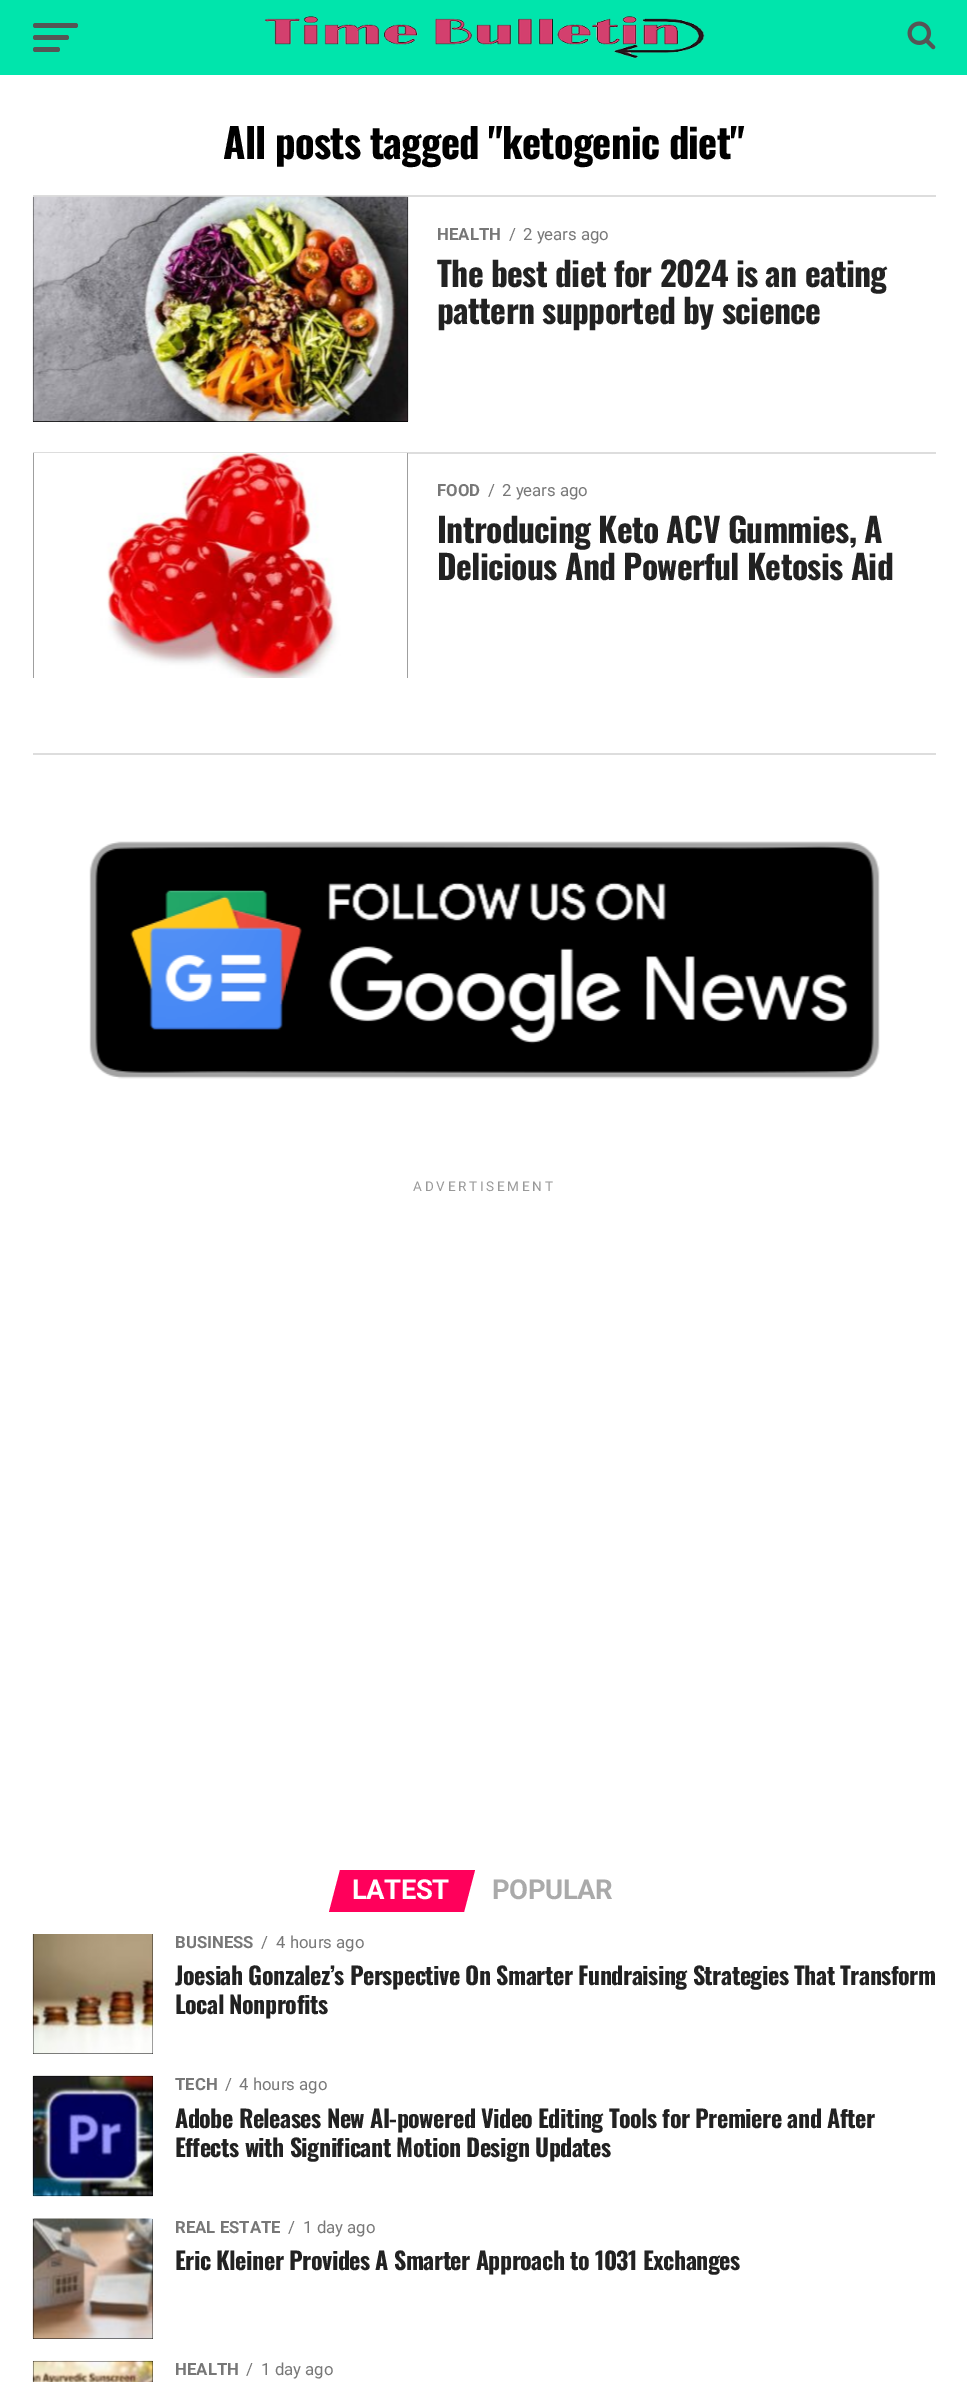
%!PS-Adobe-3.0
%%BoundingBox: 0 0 967 2382
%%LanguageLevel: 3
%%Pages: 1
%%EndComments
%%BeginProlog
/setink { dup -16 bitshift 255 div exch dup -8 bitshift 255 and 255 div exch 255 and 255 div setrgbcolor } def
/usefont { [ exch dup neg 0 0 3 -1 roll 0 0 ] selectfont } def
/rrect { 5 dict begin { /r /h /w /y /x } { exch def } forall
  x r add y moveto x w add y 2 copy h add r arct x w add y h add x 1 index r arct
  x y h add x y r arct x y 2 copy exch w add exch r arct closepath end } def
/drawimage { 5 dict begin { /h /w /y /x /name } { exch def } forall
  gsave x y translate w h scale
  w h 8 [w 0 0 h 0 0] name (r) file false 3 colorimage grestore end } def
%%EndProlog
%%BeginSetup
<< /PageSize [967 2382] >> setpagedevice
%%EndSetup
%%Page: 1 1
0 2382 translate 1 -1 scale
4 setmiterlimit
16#FFFFFF setink
0 0 967 2382 rectfill
16#00E5AC setink
0 0 967 75 rectfill
16#555555 setink
33 23 45 5 2.5 rrect fill
33 35 36 5 2.5 rrect fill
33 47 27 5 2.5 rrect fill
(img1.raw) 264 16 441 43 drawimage
(img2.raw) 907 21 29 29 drawimage
/Oswald-Bold 40.75 usefont
16#000000 setink
223 159 moveto -0.8 0 (All posts tagged "ketogenic diet") ashow
16#DDDDDD setink
33 195 903 2 rectfill
16#000000 setink
33 197 375 225 rectfill
(img3.raw) 32 196 377 226 drawimage
/Roboto-Bold 16.75 usefont
16#777777 setink
437 240 moveto (HEALTH) show
/Roboto-Regular 16.75 usefont
509 240 moveto (/) show
523 240 moveto (2 years ago) show
/Oswald-Bold 33.6 usefont
16#222222 setink
437 287 moveto -0.65 0 (The best diet for 2024 is an eating) ashow
437 324 moveto -0.65 0 (pattern supported by science) ashow
16#DDDDDD setink
33 452 903 2 rectfill
16#000000 setink
33 453 375 225 rectfill
(img4.raw) 33 453 376 225 drawimage
/Roboto-Bold 16.75 usefont
16#777777 setink
437 496 moveto (FOOD) show
/Roboto-Regular 16.75 usefont
488 496 moveto (/) show
502 496 moveto (2 years ago) show
/Oswald-Bold 33.6 usefont
16#222222 setink
437 543 moveto -0.65 0 (Introducing Keto ACV Gummies, A) ashow
437 580 moveto -0.65 0 (Delicious And Powerful Ketosis Aid) ashow
16#DDDDDD setink
33 753 903 2 rectfill
(img5.raw) 89 841 791 238 drawimage
/Roboto-Regular 13.5 usefont
16#999999 setink
413 1191 moveto 2.75 0 (ADVERTISEMENT) ashow
16#FF005B setink
340 1870 moveto 475 1870 lineto 464 1912 lineto 329 1912 lineto closepath fill
/Roboto-Bold 27.5 usefont
16#FFFFFF setink
352 1899 moveto -0.5 0 (LATEST) ashow
16#AAAAAA setink
492 1899 moveto -0.5 0 (POPULAR) ashow
16#000000 setink
33 1934 120 120 rectfill
(img6.raw) 32 1934 121 120 drawimage
/Roboto-Bold 16.75 usefont
16#777777 setink
175 1948 moveto (BUSINESS) show
/Roboto-Regular 16.75 usefont
261 1948 moveto (/) show
276 1948 moveto (4 hours ago) show
/Oswald-Bold 24 usefont
16#222222 setink
175 1985 moveto -0.48 0 (Joesiah Gonzalez’s Perspective On Smarter Fundraising Strategies That Transform) ashow
175 2014 moveto -0.48 0 (Local Nonprofits) ashow
16#000000 setink
33 2076 120 120 rectfill
(img7.raw) 32 2075 121 122 drawimage
/Roboto-Bold 16.75 usefont
16#777777 setink
175 2090 moveto (TECH) show
/Roboto-Regular 16.75 usefont
225 2090 moveto (/) show
239 2090 moveto (4 hours ago) show
/Oswald-Bold 24 usefont
16#222222 setink
175 2128 moveto -0.48 0 (Adobe Releases New AI-powered Video Editing Tools for Premiere and After) ashow
175 2157 moveto -0.48 0 (Effects with Significant Motion Design Updates) ashow
16#000000 setink
33 2219 120 120 rectfill
(img8.raw) 32 2218 121 121 drawimage
/Roboto-Bold 16.75 usefont
16#777777 setink
175 2233 moveto (REAL ESTATE) show
/Roboto-Regular 16.75 usefont
288 2233 moveto (/) show
303 2233 moveto (1 day ago) show
/Oswald-Bold 24 usefont
16#222222 setink
175 2270 moveto -0.48 0 (Eric Kleiner Provides A Smarter Approach to 1031 Exchanges) ashow
16#000000 setink
33 2361 120 21 rectfill
(img9.raw) 32 2360 121 22 drawimage
/Roboto-Bold 16.75 usefont
16#777777 setink
175 2375 moveto (HEALTH) show
/Roboto-Regular 16.75 usefont
246 2375 moveto (/) show
261 2375 moveto (1 day ago) show
showpage
%%EOF
